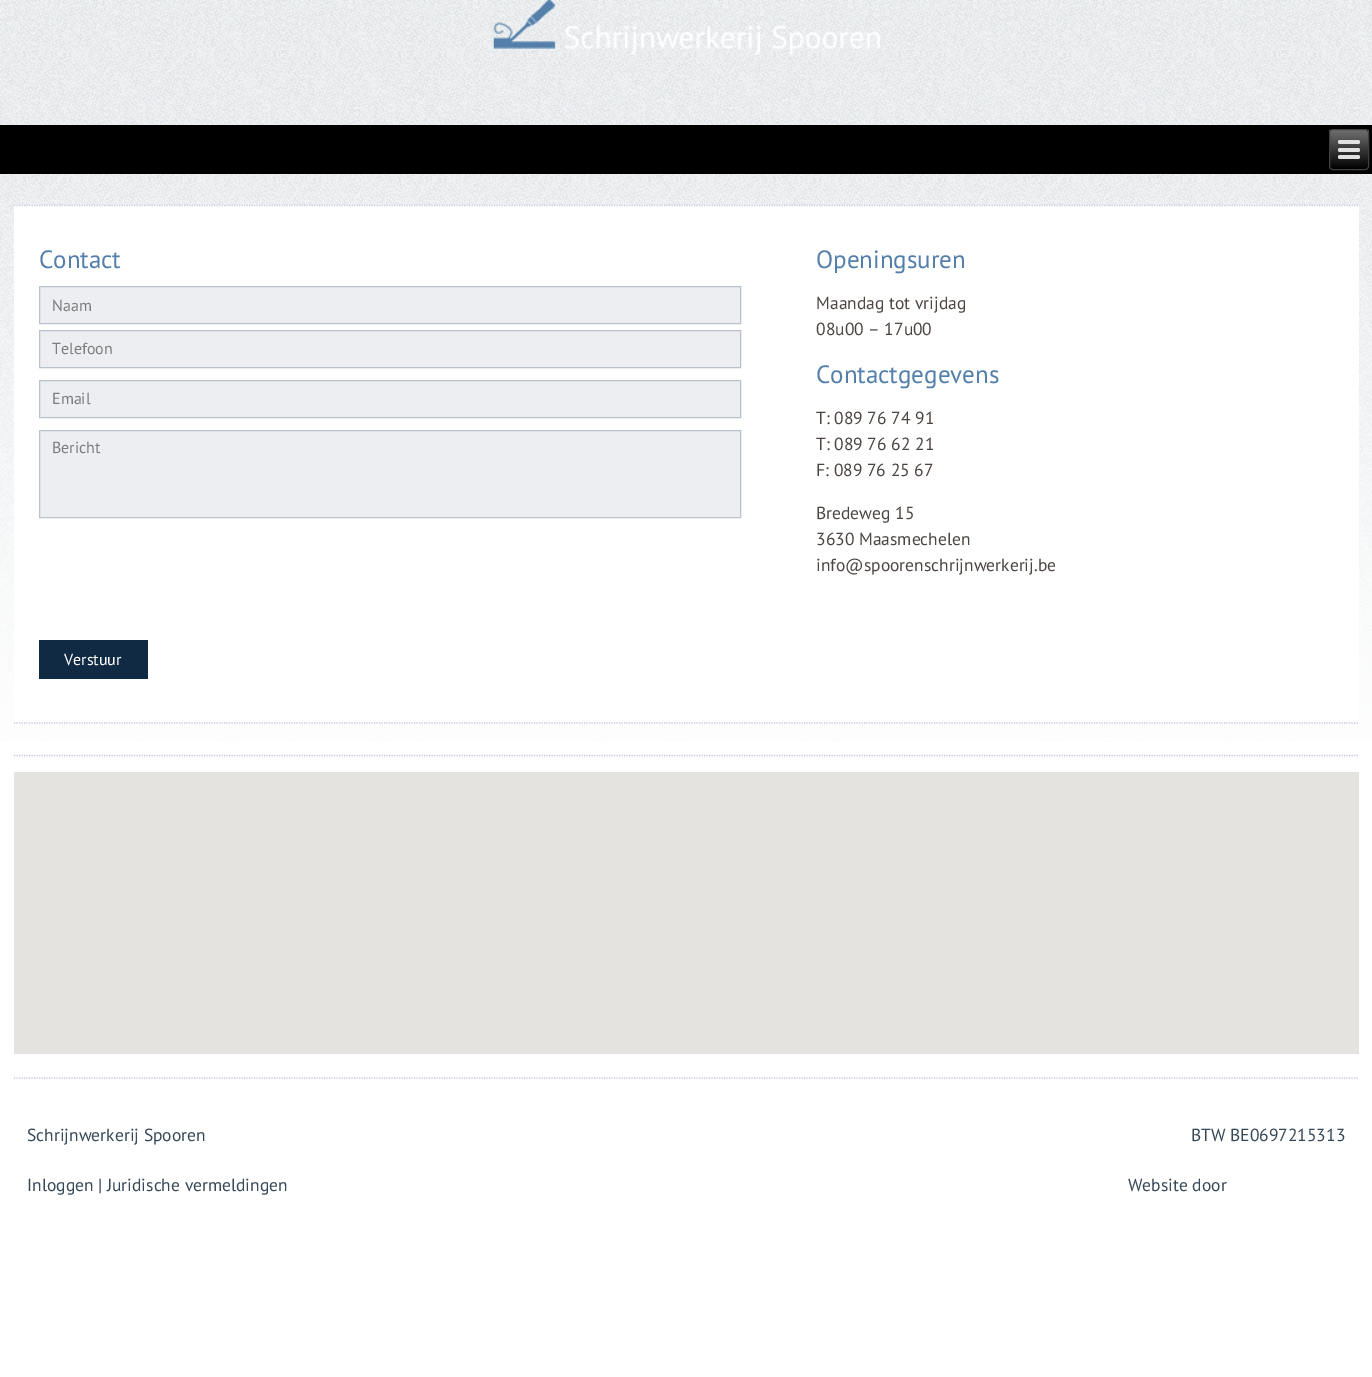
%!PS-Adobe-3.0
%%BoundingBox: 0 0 1372 1377
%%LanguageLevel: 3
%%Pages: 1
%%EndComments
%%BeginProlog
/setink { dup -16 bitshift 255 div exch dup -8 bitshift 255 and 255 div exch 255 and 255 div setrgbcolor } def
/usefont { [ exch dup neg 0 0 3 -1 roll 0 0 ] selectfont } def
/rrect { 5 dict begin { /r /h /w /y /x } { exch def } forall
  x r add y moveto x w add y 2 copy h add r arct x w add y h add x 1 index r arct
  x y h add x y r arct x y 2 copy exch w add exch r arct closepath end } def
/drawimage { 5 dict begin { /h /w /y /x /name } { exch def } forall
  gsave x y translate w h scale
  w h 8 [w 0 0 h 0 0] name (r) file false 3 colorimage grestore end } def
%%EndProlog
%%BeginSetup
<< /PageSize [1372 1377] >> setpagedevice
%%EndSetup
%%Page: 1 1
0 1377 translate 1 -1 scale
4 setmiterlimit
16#FFFFFF setink
0 0 1372 1377 rectfill
(img1.raw) 0 0 1372 742 drawimage
(img2.raw) 493 0 387 55 drawimage
16#000000 setink
0 125 1372 49 rectfill
gsave
1329 129 40 41 4 rrect clip newpath
gsave 1329 130 moveto 1369 130 lineto 1369 169 lineto 1329 169 lineto closepath clip newpath
<< /ShadingType 2 /ColorSpace /DeviceRGB /Coords [1349 130 1349 169] /Extend [true true] /Function << /FunctionType 2 /Domain [0 1] /C0 [0.439 0.439 0.439] /C1 [0 0 0] /N 1 >> >> shfill grestore
grestore
16#404040 setink
1329.5 129.5 39 40 3.5 rrect stroke
16#E0E0E0 setink
1338 140 22 4 2 rrect fill
1338 148 22 4 2 rrect fill
1338 155 22 4 2 rrect fill
16#FFFFFF setink
14 205 1345 519 rectfill
16#C7C7E2 setink
1.2 setlinewidth
[1.25 1.25] 0 setdash
14 205.5 moveto 1359 205.5 lineto stroke
14 723 moveto 1359 723 lineto stroke
/PTSans-Regular 25 usefont
16#537FAA setink
39 268 moveto (Contact) show
16#EDEEF1 setink
39.5 286.5 moveto 740.5 286.5 lineto 740.5 323.5 lineto 39.5 323.5 lineto closepath gsave fill grestore
16#B9C2CB setink
1 setlinewidth
[] 0 setdash
stroke
/PTSans-Regular 16 usefont
16#7D7E7F setink
52 311 moveto (Naam) show
16#EDEEF1 setink
39.5 330.5 moveto 740.5 330.5 lineto 740.5 367.5 lineto 39.5 367.5 lineto closepath gsave fill grestore
16#B9C2CB setink
stroke
16#7D7E7F setink
52 354 moveto (Telefoon) show
16#EDEEF1 setink
39.5 380.5 moveto 740.5 380.5 lineto 740.5 417.5 lineto 39.5 417.5 lineto closepath gsave fill grestore
16#B9C2CB setink
stroke
16#7D7E7F setink
52 404 moveto (Email) show
16#EDEEF1 setink
39.5 430.5 moveto 740.5 430.5 lineto 740.5 517.5 lineto 39.5 517.5 lineto closepath gsave fill grestore
16#B9C2CB setink
stroke
16#7D7E7F setink
52 453 moveto (Bericht) show
16#102A44 setink
39 640 109 39 rectfill
16#FFFFFF setink
64 665 moveto (Verstuur) show
/PTSans-Regular 25 usefont
16#537FAA setink
816 268 moveto (Openingsuren) show
/PTSans-Regular 17.5 usefont
16#4D4542 setink
816 309 moveto (Maandag tot vrijdag) show
816 335 moveto (08u00 – 17u00) show
/PTSans-Regular 25 usefont
16#537FAA setink
816 383 moveto (Contactgegevens) show
/PTSans-Regular 17.5 usefont
16#4D4542 setink
[
    [(T: 089 76 74 91) 816 424]
    [(T: 089 76 62 21) 816 450]
    [(F: 089 76 25 67) 816 476]
    [(Bredeweg 15) 816 519]
    [(3630 Maasmechelen) 816 545]
    [(info@spoorenschrijnwerkerij.be) 816 571]
] { aload pop moveto show } forall
16#C7C7E2 setink
1.2 setlinewidth
[1.25 1.25] 0 setdash
14 755.5 moveto 1359 755.5 lineto stroke
14 1078 moveto 1359 1078 lineto stroke
16#E5E3DF setink
14 772 1345 282 rectfill
16#374857 setink
[
    [(Schrijnwerkerij Spooren) 27 1141]
    [(BTW BE0697215313) 1191 1141]
    [(Inloggen | Juridische vermeldingen) 27 1191]
    [(Website door) 1128 1191]
] { aload pop moveto show } forall
showpage
%%EOF
